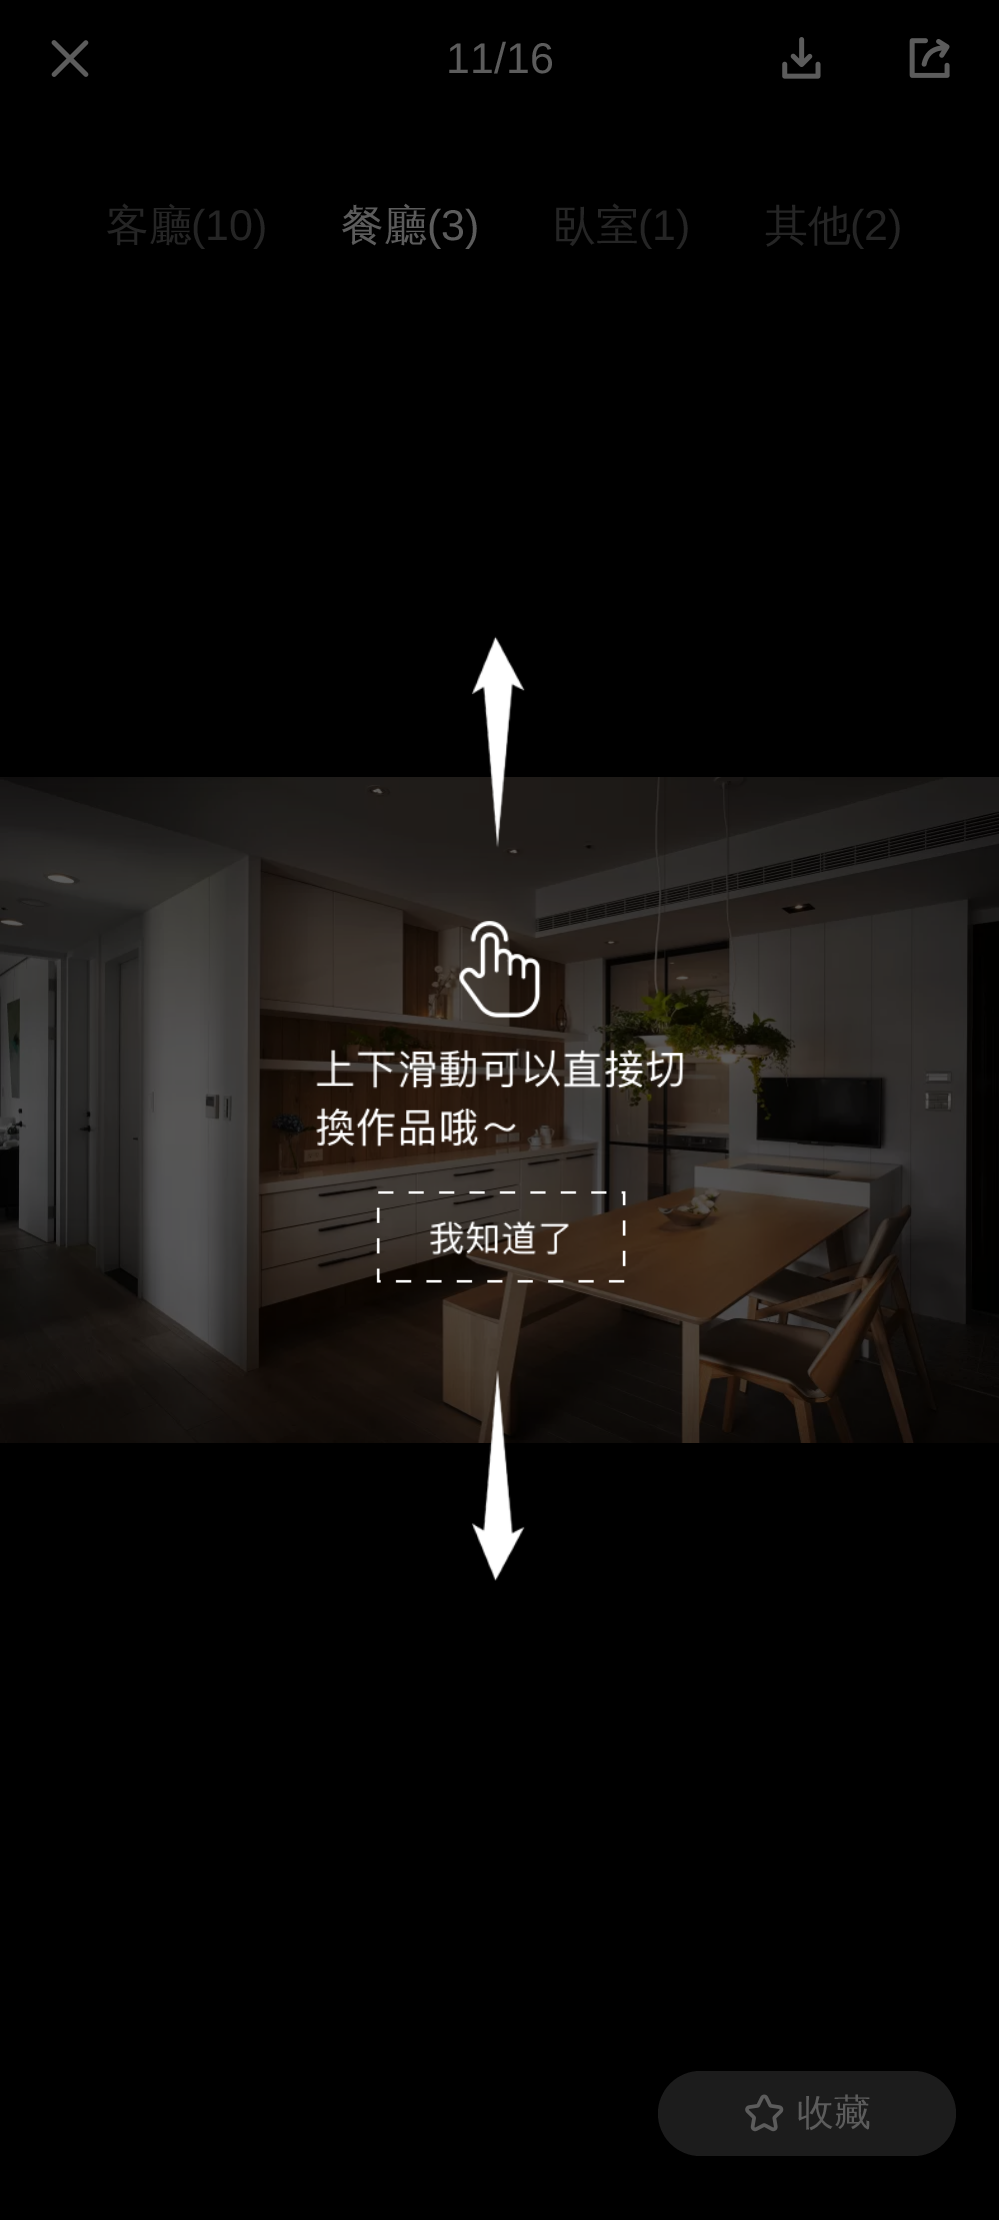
%!PS-Adobe-3.0
%%BoundingBox: 0 0 999 2220
%%LanguageLevel: 3
%%Pages: 1
%%EndComments
%%BeginProlog
/setink { dup -16 bitshift 255 div exch dup -8 bitshift 255 and 255 div exch 255 and 255 div setrgbcolor } def
/usefont { [ exch dup neg 0 0 3 -1 roll 0 0 ] selectfont } def
/rrect { 5 dict begin { /r /h /w /y /x } { exch def } forall
  x r add y moveto x w add y 2 copy h add r arct x w add y h add x 1 index r arct
  x y h add x y r arct x y 2 copy exch w add exch r arct closepath end } def
/drawimage { 5 dict begin { /h /w /y /x /name } { exch def } forall
  gsave x y translate w h scale
  w h 8 [w 0 0 h 0 0] name (r) file false 3 colorimage grestore end } def
%%EndProlog
%%BeginSetup
<< /PageSize [999 2220] >> setpagedevice
%%EndSetup
%%Page: 1 1
0 2220 translate 1 -1 scale
4 setmiterlimit
16#000000 setink
0 0 999 2220 rectfill
(img1.raw) 51 40 38 37 drawimage
/LiberationSans-Regular 43 usefont
16#5C5C5C setink
446 73 moveto (11/16) show
(img2.raw) 782 37 39 42 drawimage
(img3.raw) 909 38 41 40 drawimage
/WenQuanYiZenHei-Medium 43 usefont
16#252525 setink
106 240 moveto (客廳) show
/LiberationSans-Regular 43 usefont
191 240 moveto (\(10\)) show
/WenQuanYiZenHei-Medium 43 usefont
16#5C5C5C setink
341 240 moveto (餐廳) show
/LiberationSans-Regular 43 usefont
427 240 moveto (\(3\)) show
/WenQuanYiZenHei-Medium 43 usefont
16#252525 setink
553 240 moveto (臥室) show
/LiberationSans-Regular 43 usefont
638 240 moveto (\(1\)) show
/WenQuanYiZenHei-Medium 43 usefont
765 240 moveto (其他) show
/LiberationSans-Regular 43 usefont
850 240 moveto (\(2\)) show
(img4.raw) 0 777 999 666 drawimage
16#1C1C1C setink
658 2071 298 85 42.5 rrect fill
(img5.raw) 745 2094 39 38 drawimage
/WenQuanYiZenHei-Medium 37 usefont
16#5C5C5C setink
797 2125 moveto (收藏) show
(img6.raw) 316 636 368 945 drawimage
showpage
%%EOF
